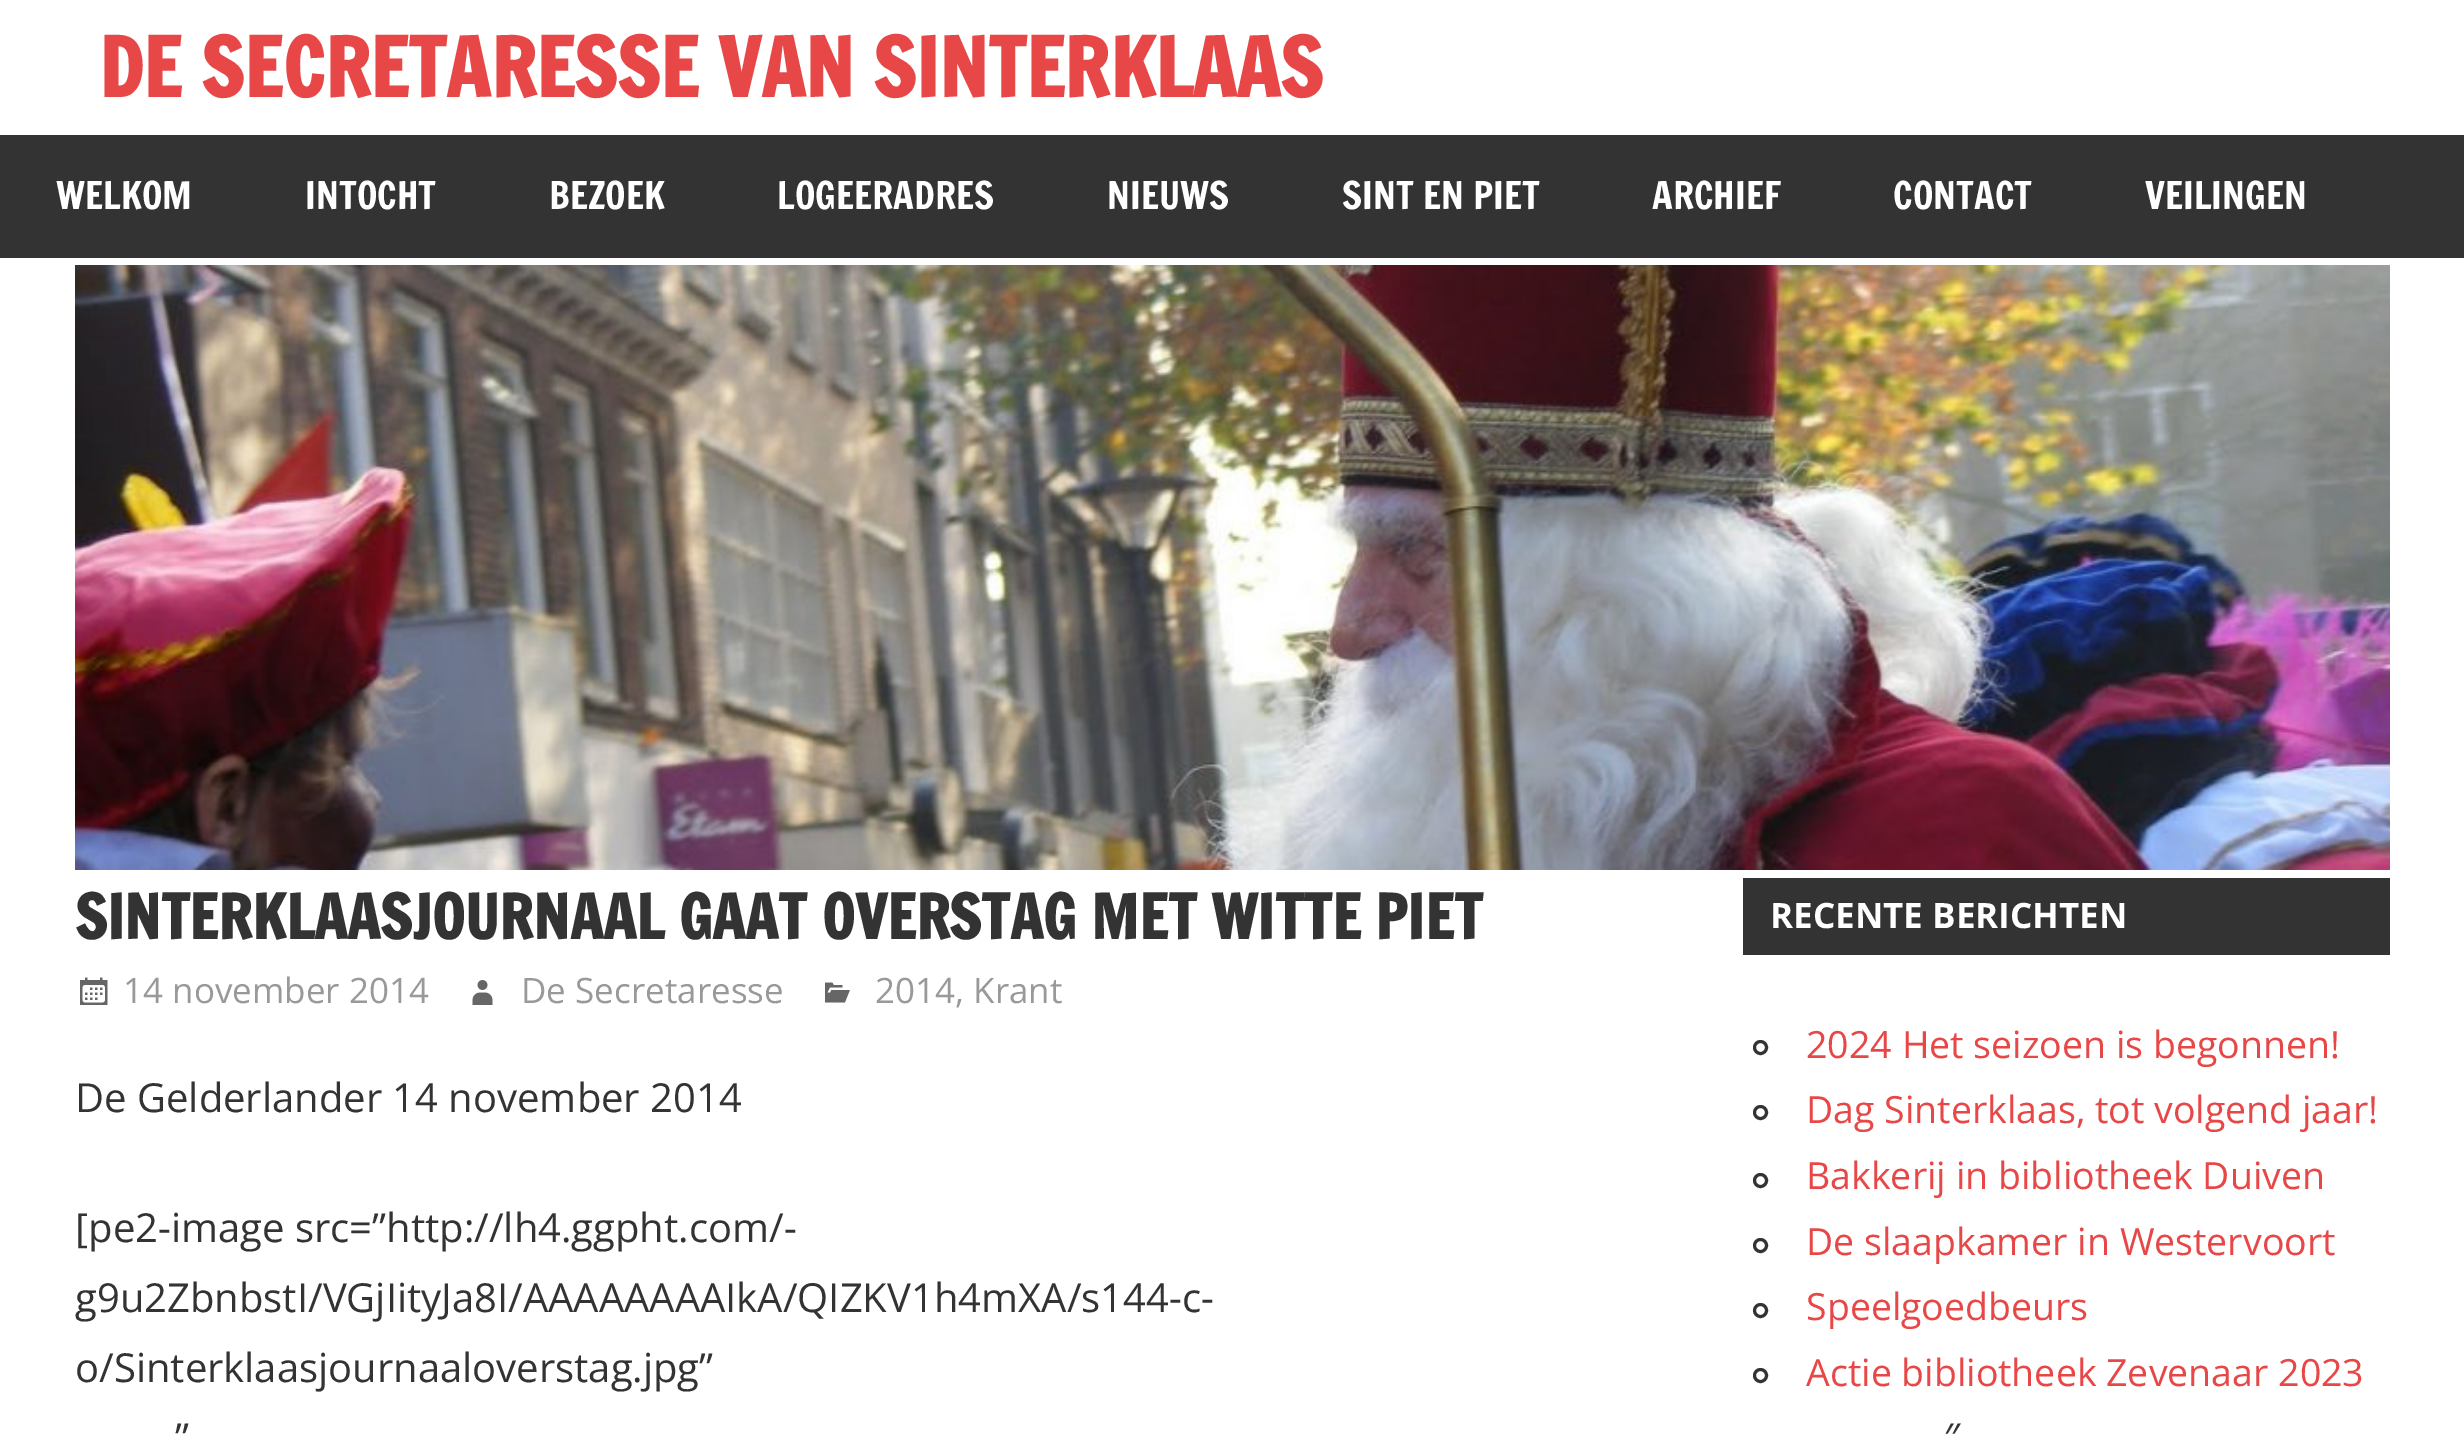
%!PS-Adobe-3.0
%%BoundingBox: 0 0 2464 1438
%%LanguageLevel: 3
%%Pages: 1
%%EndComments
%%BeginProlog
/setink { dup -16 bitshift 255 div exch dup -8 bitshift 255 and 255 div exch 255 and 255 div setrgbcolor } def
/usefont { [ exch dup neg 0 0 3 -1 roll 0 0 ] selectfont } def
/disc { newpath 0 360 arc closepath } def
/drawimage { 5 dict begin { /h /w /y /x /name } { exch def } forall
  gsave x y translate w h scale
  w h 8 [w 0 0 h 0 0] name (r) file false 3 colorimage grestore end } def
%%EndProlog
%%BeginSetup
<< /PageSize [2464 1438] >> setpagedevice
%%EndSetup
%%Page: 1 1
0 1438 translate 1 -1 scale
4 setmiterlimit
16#FFFFFF setink
0 0 2464 1438 rectfill
/FrancoisOne-Bold 80 usefont
16#E84747 setink
99 97 moveto (DE SECRETARESSE VAN SINTERKLAAS) show
16#333333 setink
0 135 2464 123 rectfill
/FrancoisOne-Regular 37.5 usefont
16#FFFFFF setink
[
    [(WELKOM) 56 209]
    [(INTOCHT) 305 209]
    [(BEZOEK) 549 209]
    [(LOGEERADRES) 777 209]
    [(NIEUWS) 1107 209]
    [(SINT EN PIET) 1342 209]
    [(ARCHIEF) 1652 209]
    [(CONTACT) 1893 209]
    [(VEILINGEN) 2145 209]
] { aload pop moveto show } forall
(img1.raw) 75 265 2315 605 drawimage
/FrancoisOne-Bold 60 usefont
16#333333 setink
75 939 moveto (SINTERKLAASJOURNAAL GAAT OVERSTAG MET WITTE PIET) show
(img2.raw) 80 977 28 28 drawimage
/OpenSans-Regular 35 usefont
16#999999 setink
123 1003 moveto (14 november 2014) show
(img3.raw) 472 980 21 25 drawimage
521 1003 moveto (De Secretaresse) show
(img4.raw) 825 982 25 21 drawimage
875 1003 moveto (2014, Krant) show
/OpenSans-Regular 40 usefont
16#333333 setink
[
    [(De Gelderlander 14 november 2014) 75 1112]
    [([pe2-image src=”http://lh4.ggpht.com/-) 75 1242]
    [(g9u2ZbnbstI/VGjIityJa8I/AAAAAAAAIkA/QIZKV1h4mXA/s144-c-) 75 1312]
    [(o/Sinterklaasjournaaloverstag.jpg”) 75 1382]
    [(”) 175 1452]
    [(″) 1944 1452]
] { aload pop moveto show } forall
1743 878 647 77 rectfill
/OpenSans-Bold 35 usefont
16#FFFFFF setink
1770 928 moveto (RECENTE BERICHTEN) show
16#333333 setink
3 setlinewidth
1760.5 1047.5 6 disc stroke
/OpenSans-Regular 37.5 usefont
16#E84747 setink
1806 1058 moveto (2024 Het seizoen is begonnen!) show
16#333333 setink
1760.5 1112.5 6 disc stroke
16#E84747 setink
1806 1123 moveto (Dag Sinterklaas, tot volgend jaar!) show
16#333333 setink
1760.5 1180.5 6 disc stroke
16#E84747 setink
1806 1189 moveto (Bakkerij in bibliotheek Duiven) show
16#333333 setink
1760.5 1245.5 6 disc stroke
16#E84747 setink
1806 1255 moveto (De slaapkamer in Westervoort) show
16#333333 setink
1760.5 1310.5 6 disc stroke
16#E84747 setink
1806 1320 moveto (Speelgoedbeurs) show
16#333333 setink
1760.5 1375.5 6 disc stroke
16#E84747 setink
1806 1386 moveto (Actie bibliotheek Zevenaar 2023) show
showpage
%%EOF
